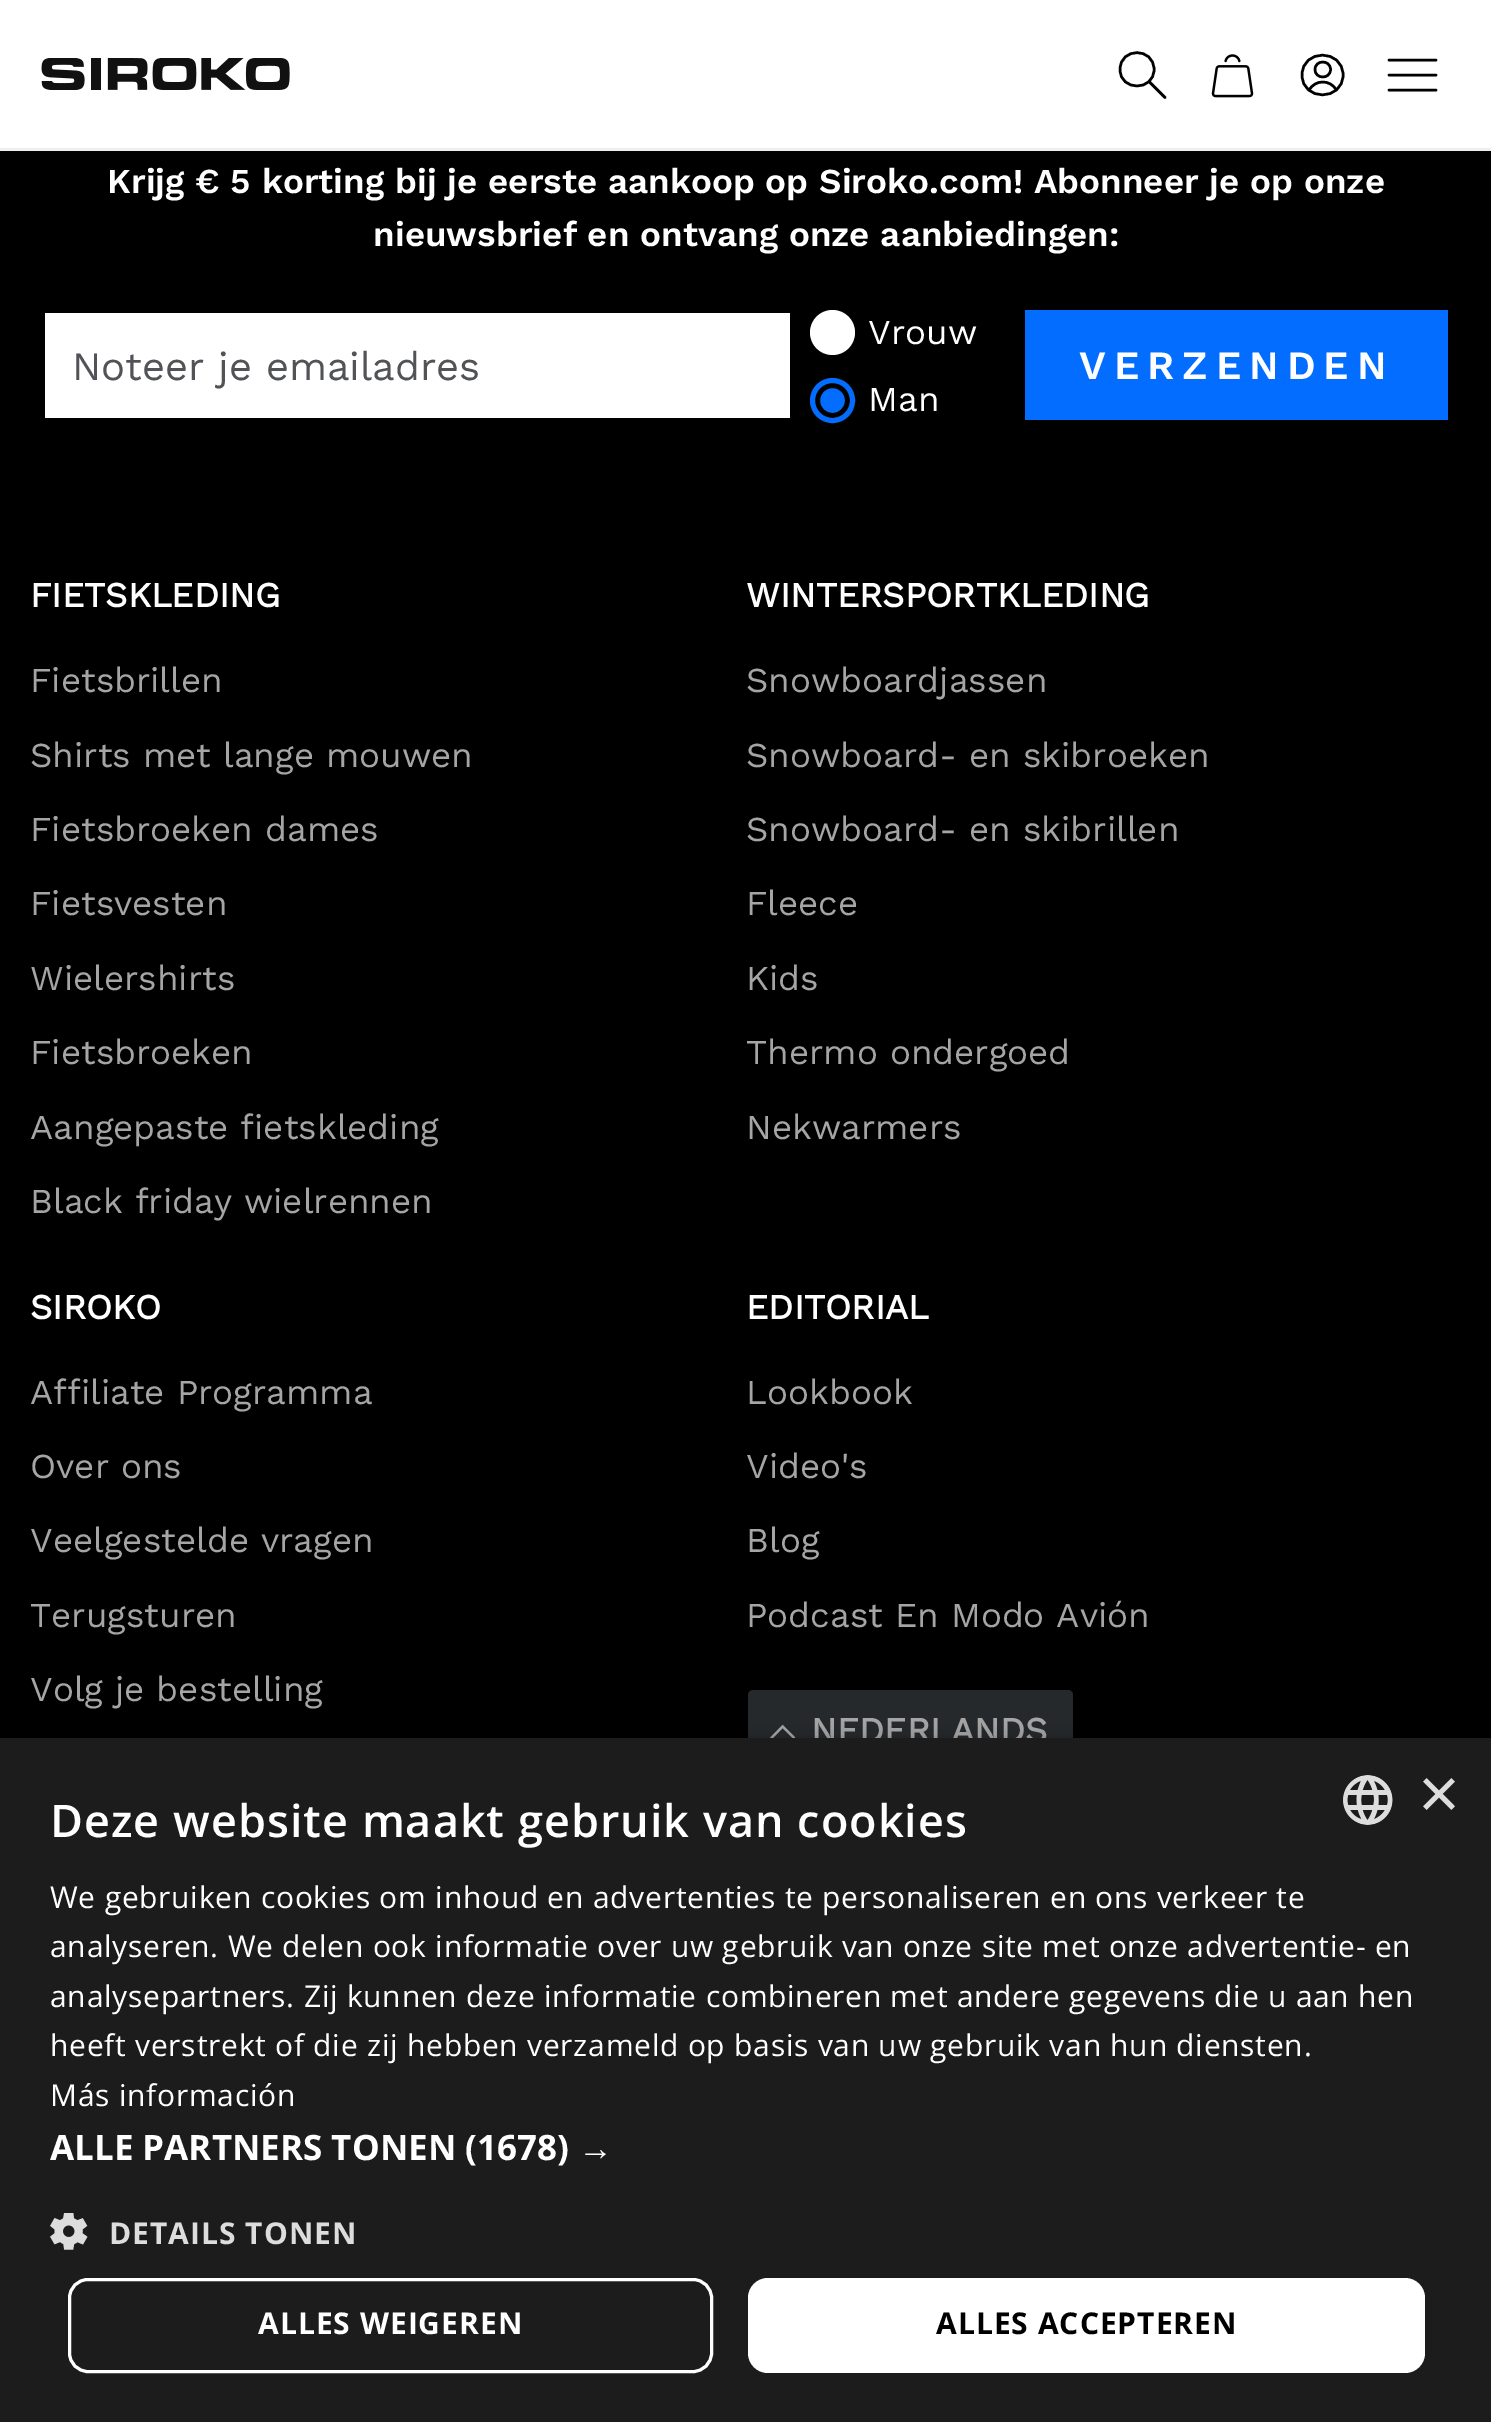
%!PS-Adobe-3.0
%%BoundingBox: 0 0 1491 2422
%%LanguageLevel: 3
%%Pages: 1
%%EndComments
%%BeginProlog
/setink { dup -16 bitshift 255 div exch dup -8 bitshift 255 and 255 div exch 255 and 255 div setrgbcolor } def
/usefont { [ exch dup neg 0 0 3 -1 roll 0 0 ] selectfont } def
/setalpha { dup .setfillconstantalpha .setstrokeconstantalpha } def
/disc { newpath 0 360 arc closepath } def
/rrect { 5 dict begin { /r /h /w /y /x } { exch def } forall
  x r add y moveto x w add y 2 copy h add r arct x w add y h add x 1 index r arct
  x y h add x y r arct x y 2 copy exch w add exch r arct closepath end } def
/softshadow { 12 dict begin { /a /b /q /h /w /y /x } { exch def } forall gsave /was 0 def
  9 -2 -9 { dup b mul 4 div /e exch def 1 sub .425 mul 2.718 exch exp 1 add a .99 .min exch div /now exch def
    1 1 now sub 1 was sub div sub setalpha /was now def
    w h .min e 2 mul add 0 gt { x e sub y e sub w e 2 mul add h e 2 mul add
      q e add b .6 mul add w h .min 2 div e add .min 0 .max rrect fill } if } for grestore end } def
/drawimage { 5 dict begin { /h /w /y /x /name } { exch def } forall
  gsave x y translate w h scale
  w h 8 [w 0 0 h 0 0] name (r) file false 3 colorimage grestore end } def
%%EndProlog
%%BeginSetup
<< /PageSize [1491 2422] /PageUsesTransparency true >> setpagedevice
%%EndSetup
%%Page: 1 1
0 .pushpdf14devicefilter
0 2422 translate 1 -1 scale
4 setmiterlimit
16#000000 setink
0 0 1491 2422 rectfill
16#FFFFFF setink
0 0 1491 148 rectfill
16#EFEFEF setink
0 148 1491 3 rectfill
(img1.raw) 41 58 249 32 drawimage
16#000000 setink
2.5 setlinewidth
1 setlinecap
1 setlinejoin
1165 97.5 moveto 1149 81.5 lineto 1154 69.5 moveto 1154 91.5 1120 91.5 1120 69.5 curveto 1120 47 1154 47 1154 69.5 curveto closepath stroke
(img2.raw) 1211 54 43 44 drawimage
1309.5 89.5 moveto 1315.5 79.5 1330 79.5 1336 89.5 curveto 1330.5 69.5 moveto 1330.5 79.5 1315 79.5 1315 69.5 curveto 1315 59.5 1330.5 59.5 1330.5 69.5 curveto closepath 1343 75 moveto 1343 101.5 1302 101.5 1302 75 curveto 1302 48.5 1343 48.5 1343 75 curveto closepath stroke
1436 60 moveto 1389 60 lineto 1436 75 moveto 1389 75 lineto 1436 90 moveto 1389 90 lineto stroke
/WorkSans-SemiBold 35 usefont
16#FFFFFF setink
107 193 moveto (Krijg € 5 korting bij je eerste aankoop op Siroko.com! Abonneer je op onze) show
373 246 moveto (nieuwsbrief en ontvang onze aanbiedingen:) show
45 313 745 105 rectfill
/WorkSans-Regular 40 usefont
16#515357 setink
72 380 moveto (Noteer je emailadres) show
16#FFFFFF setink
832.5 332.5 22.5 disc fill
/WorkSans-Regular 35 usefont
868 344 moveto (Vrouw) show
16#026DFF setink
832.5 400.5 17.5 disc gsave fill grestore
16#000000 setink
10 setlinewidth
0 setlinecap
0 setlinejoin
stroke
16#026DFF setink
5 setlinewidth
832.5 400.5 20 disc stroke
16#FFFFFF setink
868 411 moveto (Man) show
16#026DFF setink
1025 310 423 110 rectfill
/WorkSans-SemiBold 40 usefont
16#FFFFFF setink
1079 379 moveto 8 0 (VERZENDEN) ashow
/WorkSans-Bold 35 usefont
30 607 moveto (FIETSKLEDING) show
/WorkSans-Regular 35 usefont
16#A5A5A5 setink
[
    [(Fietsbrillen) 30 692]
    [(Shirts met lange mouwen) 30 767]
    [(Fietsbroeken dames) 30 841]
    [(Fietsvesten) 30 915]
    [(Wielershirts) 30 990]
    [(Fietsbroeken) 30 1064]
    [(Aangepaste fietskleding) 30 1139]
    [(Black friday wielrennen) 30 1213]
] { aload pop moveto show } forall
/WorkSans-Bold 35 usefont
16#FFFFFF setink
746 607 moveto (WINTERSPORTKLEDING) show
/WorkSans-Regular 35 usefont
16#A5A5A5 setink
[
    [(Snowboardjassen) 746 692]
    [(Snowboard- en skibroeken) 746 767]
    [(Snowboard- en skibrillen) 746 841]
    [(Fleece) 746 915]
    [(Kids) 746 990]
    [(Thermo ondergoed) 746 1064]
    [(Nekwarmers) 746 1139]
] { aload pop moveto show } forall
/WorkSans-Bold 35 usefont
16#FFFFFF setink
30 1319 moveto (SIROKO) show
/WorkSans-Regular 35 usefont
16#A5A5A5 setink
[
    [(Affiliate Programma) 30 1404]
    [(Over ons) 30 1478]
    [(Veelgestelde vragen) 30 1552]
    [(Terugsturen) 30 1627]
    [(Volg je bestelling) 30 1701]
] { aload pop moveto show } forall
/WorkSans-Bold 35 usefont
16#FFFFFF setink
746 1319 moveto (EDITORIAL) show
/WorkSans-Regular 35 usefont
16#A5A5A5 setink
[
    [(Lookbook) 746 1404]
    [(Video's) 746 1478]
    [(Blog) 746 1552]
    [(Podcast En Modo Avión) 746 1627]
] { aload pop moveto show } forall
16#26292C setink
748 1690 325 80 5 rrect fill
(img3.raw) 770 1724 26 14 drawimage
/WorkSans-Bold 35 usefont
16#A5A5A5 setink
811 1742 moveto (NEDERLANDS) show
16#000000 setink
3 1743 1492 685 0 10 0.35 softshadow
16#1C1C1C setink
0 1738 1491 684 rectfill
(img4.raw) 1343 1775 50 50 drawimage
/LiberationSans-Regular 72 usefont
16#DDDDDD setink
1418 1818 moveto (×) show
/OpenSans-SemiBold 45 usefont
16#FFFFFF setink
50 1837 moveto 1 0 (Deze website maakt gebruik van cookies) ashow
/OpenSans-Regular 30 usefont
50 1908 moveto 0.75 0 (We gebruiken cookies om inhoud en advertenties te personaliseren en ons verkeer te) ashow
50 1957 moveto 0.75 0 (analyseren. We delen ook informatie over uw gebruik van onze site met onze advertentie- en) ashow
50 2007 moveto 0.75 0 (analysepartners. Zij kunnen deze informatie combineren met andere gegevens die u aan hen) ashow
50 2056 moveto 0.75 0 (heeft verstrekt of die zij hebben verzameld op basis van uw gebruik van hun diensten.) ashow
50 2106 moveto 0.75 0 (Más información) ashow
/OpenSans-Bold 35 usefont
50 2160 moveto (ALLE PARTNERS TONEN \(1678\)) show
/LiberationSans-Bold 35 usefont
578 2160 moveto (→) show
(img5.raw) 50 2213 38 37 drawimage
/OpenSans-Bold 30 usefont
16#DDDDDD setink
109 2244 moveto 1 0 (DETAILS TONEN) ashow
16#FFFFFF setink
3 setlinewidth
69.5 2279.5 642 92 18.5 rrect stroke
258 2334 moveto 1 0 (ALLES WEIGEREN) ashow
748 2278 677 95 20 rrect fill
16#000000 setink
936 2334 moveto 1 0 (ALLES ACCEPTEREN) ashow
.poppdf14devicefilter showpage
%%EOF
